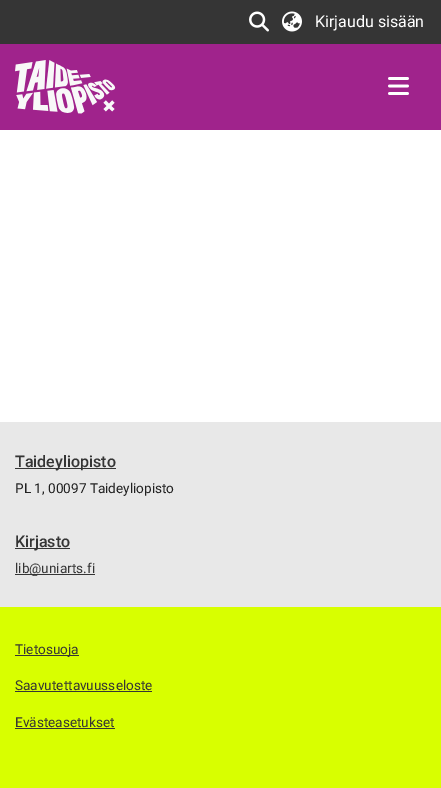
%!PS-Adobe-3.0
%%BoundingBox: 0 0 441 788
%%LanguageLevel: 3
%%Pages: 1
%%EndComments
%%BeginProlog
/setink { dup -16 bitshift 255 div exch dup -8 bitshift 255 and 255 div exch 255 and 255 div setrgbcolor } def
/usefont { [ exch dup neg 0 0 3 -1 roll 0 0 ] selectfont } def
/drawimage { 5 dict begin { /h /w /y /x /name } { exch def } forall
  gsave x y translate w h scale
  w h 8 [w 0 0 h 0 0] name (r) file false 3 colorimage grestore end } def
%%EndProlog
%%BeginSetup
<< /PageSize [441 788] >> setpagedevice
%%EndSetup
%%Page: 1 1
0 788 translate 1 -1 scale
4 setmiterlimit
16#FFFFFF setink
0 0 441 788 rectfill
16#A0238C setink
0 44 441 86 rectfill
16#353535 setink
0 0 441 44 rectfill
(img1.raw) 249 11 20 21 drawimage
(img2.raw) 282 11 20 21 drawimage
/Roboto-Regular 16 usefont
16#FFFFFF setink
315 27 moveto (Kirjaudu sisään) show
(img3.raw) 15 60 101 54 drawimage
(img4.raw) 388 77 21 18 drawimage
16#E8E8E8 setink
0 422 441 185 rectfill
16#353535 setink
15 468 101 1 rectfill
/Roboto-Medium 16 usefont
15 467 moveto (Taideyliopisto) show
/Roboto-Regular 13.6 usefont
16#212121 setink
15 493 moveto (PL 1, 00097 Taideyliopisto) show
16#353535 setink
15 548 55 1 rectfill
/Roboto-Medium 16 usefont
15 547 moveto (Kirjasto) show
15 574 80 1 rectfill
/Roboto-Regular 13.6 usefont
15 573 moveto (lib@uniarts.fi) show
16#D8FF00 setink
0 607 441 181 rectfill
16#353535 setink
15 655 64 1 rectfill
15 654 moveto (Tietosuoja) show
15 690 moveto (Saavutettavuusseloste) show
15 691 137 1 rectfill
15 727 moveto (Evästeasetukset) show
15 728 100 1 rectfill
showpage
%%EOF
